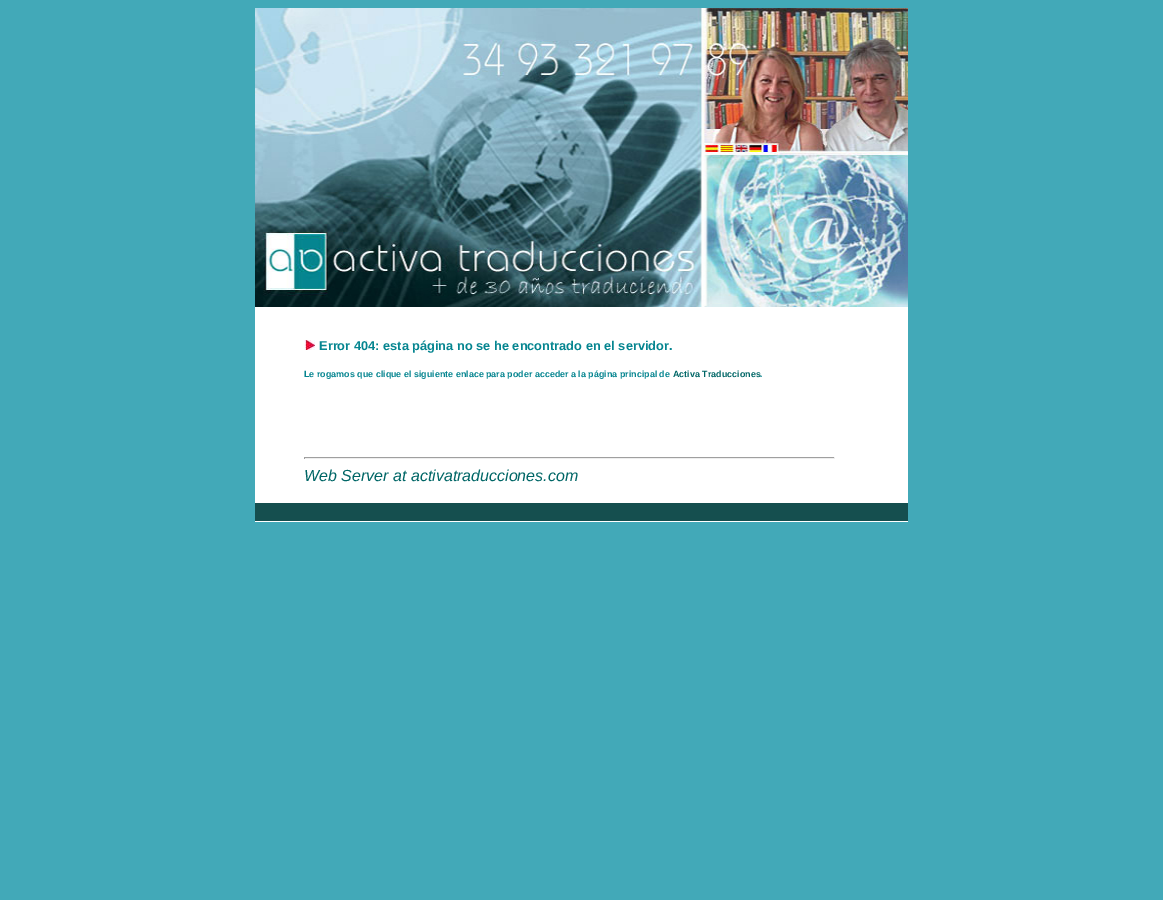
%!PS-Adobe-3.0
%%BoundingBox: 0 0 1163 900
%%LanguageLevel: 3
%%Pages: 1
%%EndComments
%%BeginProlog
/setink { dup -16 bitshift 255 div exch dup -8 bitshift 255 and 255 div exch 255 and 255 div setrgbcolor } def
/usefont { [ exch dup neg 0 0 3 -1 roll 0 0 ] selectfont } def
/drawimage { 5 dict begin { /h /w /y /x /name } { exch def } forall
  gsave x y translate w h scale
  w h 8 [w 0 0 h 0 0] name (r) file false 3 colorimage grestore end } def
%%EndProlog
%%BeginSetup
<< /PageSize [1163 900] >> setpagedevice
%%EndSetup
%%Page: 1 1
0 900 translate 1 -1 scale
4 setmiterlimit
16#42A9B8 setink
0 0 1163 900 rectfill
16#FFFFFF setink
255 307 653 215 rectfill
(img1.raw) 255 8 653 299 drawimage
(img2.raw) 304 340 11 10 drawimage
/LiberationSans-Bold 12.8 usefont
16#058590 setink
319 350 moveto (Error 404: esta página no se he encontrado en el servidor.) show
/LiberationSans-Bold 8.95 usefont
304 377 moveto (Le rogamos que clique el siguiente enlace para poder acceder a la página principal de) show
16#006666 setink
673 377 moveto (Activa Traducciones) show
16#058590 setink
760 377 moveto (.) show
[
    [304 457 531 1 16#9F9F9F]
    [834 457 1 2 16#EEEEEE]
    [304 458 531 1 16#EEEEEE]
    [304 457 1 2 16#9F9F9F]
] { aload pop setink rectfill } forall
/LiberationSans-Italic 16 usefont
16#006666 setink
304 481 moveto (Web Server at activatraducciones.com) show
16#154F4F setink
255 503 653 18 rectfill
showpage
%%EOF
